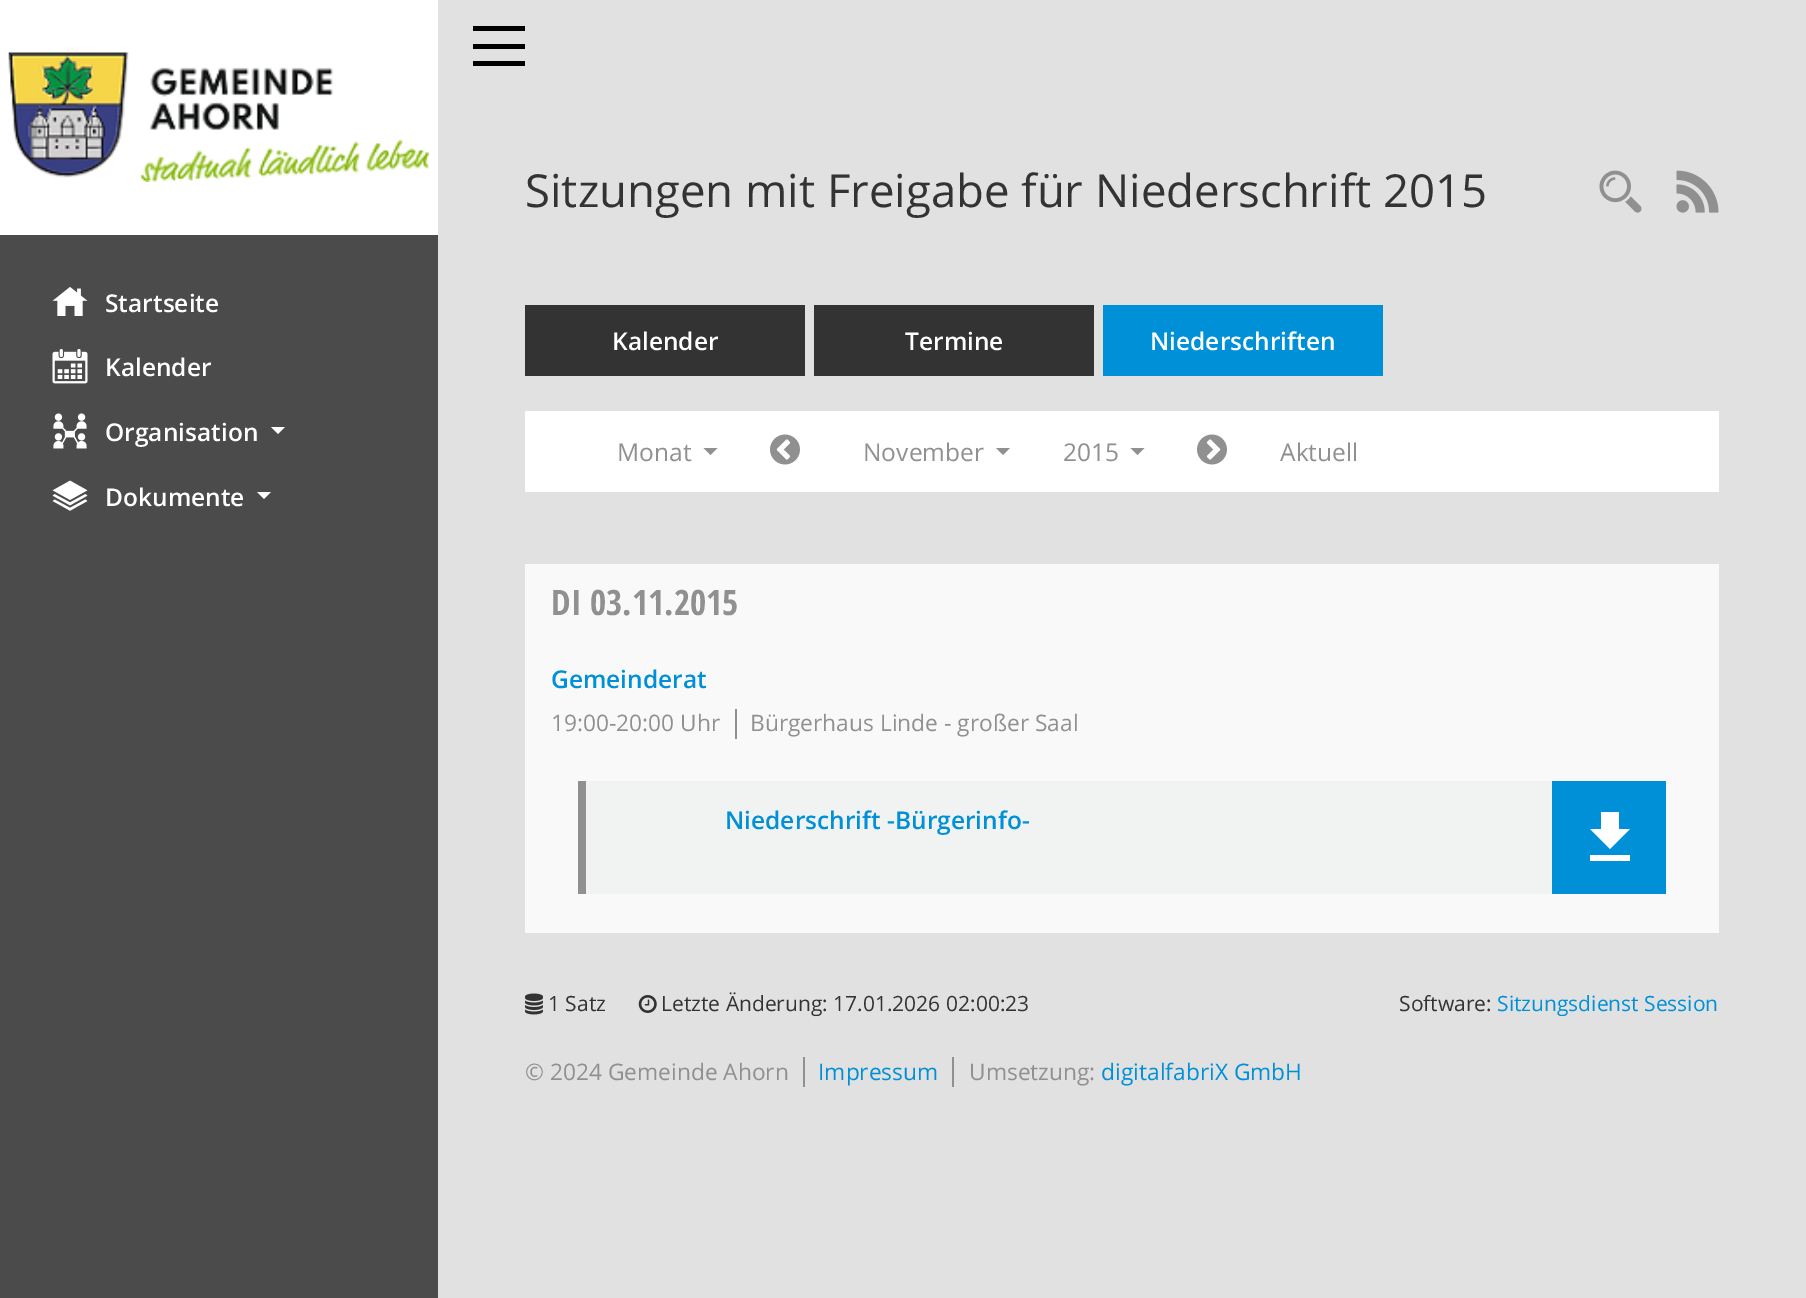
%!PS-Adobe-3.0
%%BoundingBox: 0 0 1806 1298
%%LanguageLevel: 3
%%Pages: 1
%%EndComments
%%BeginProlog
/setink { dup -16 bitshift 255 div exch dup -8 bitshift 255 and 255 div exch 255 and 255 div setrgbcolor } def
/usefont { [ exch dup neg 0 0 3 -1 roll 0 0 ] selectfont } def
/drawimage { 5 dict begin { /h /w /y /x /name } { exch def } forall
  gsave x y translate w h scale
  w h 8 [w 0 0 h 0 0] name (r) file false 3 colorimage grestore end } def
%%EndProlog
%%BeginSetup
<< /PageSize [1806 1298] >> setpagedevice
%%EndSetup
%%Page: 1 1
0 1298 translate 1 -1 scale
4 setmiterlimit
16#E1E1E1 setink
0 0 1806 1298 rectfill
16#4B4B4B setink
0 235 438 1063 rectfill
16#FFFFFF setink
0 0 438 235 rectfill
(img1.raw) 8 52 421 130 drawimage
(img2.raw) 52 287 36 29 drawimage
/OpenSans-SemiBold 24.5 usefont
105 312 moveto (Startseite) show
(img3.raw) 52 349 36 35 drawimage
105 376 moveto (Kalender) show
(img4.raw) 53 413 34 36 drawimage
105 441 moveto (Organisation) show
271 427 moveto 285 427 lineto 278 434 lineto closepath fill
(img5.raw) 52 480 36 31 drawimage
105 506 moveto (Dokumente) show
257 492 moveto 271 492 lineto 264 499 lineto closepath fill
[
    [473 26 52 5 16#000000]
    [473 44 52 5 16#000000]
    [473 61 52 5 16#000000]
] { aload pop setink rectfill } forall
/OpenSans-Regular 45.5 usefont
16#333333 setink
525 207 moveto (Sitzungen mit Freigabe für Niederschrift 2015) show
(img6.raw) 1599 170 43 43 drawimage
(img7.raw) 1676 170 43 43 drawimage
16#DEE2E6 setink
525 375 1194 2 rectfill
16#333333 setink
525 305 280 71 rectfill
/OpenSans-SemiBold 24.5 usefont
16#FFFFFF setink
612 350 moveto (Kalender) show
16#333333 setink
814 305 280 71 rectfill
16#FFFFFF setink
905 350 moveto (Termine) show
16#0090D7 setink
1103 305 280 71 rectfill
16#FFFFFF setink
1150 350 moveto (Niederschriften) show
525 411 1194 81 rectfill
/OpenSans-Regular 24.5 usefont
16#909090 setink
617 461 moveto (Monat) show
703.5 448 moveto 717.5 448 lineto 710.5 455 lineto closepath fill
(img8.raw) 770 434 30 31 drawimage
863 461 moveto (November) show
996 448 moveto 1010 448 lineto 1003 455 lineto closepath fill
1063 461 moveto (2015) show
1130.5 448 moveto 1144.5 448 lineto 1137.5 455 lineto closepath fill
(img9.raw) 1197 434 30 31 drawimage
1280 461 moveto (Aktuell) show
16#F9F9F9 setink
525 564 1194 369 rectfill
/OpenSansCondensed-Bold 35 usefont
16#909090 setink
551 615 moveto (DI) show
590 615 moveto (03.11.2015) show
/OpenSans-SemiBold 24.5 usefont
16#0090D7 setink
551 688 moveto (Gemeinderat) show
/OpenSans-Regular 22.75 usefont
16#909090 setink
551 731 moveto (19:00-20:00 Uhr) show
735 709 2 30 rectfill
750 731 moveto (Bürgerhaus Linde - großer Saal) show
16#F0F3F2 setink
586 781 966 113 rectfill
16#909090 setink
578 781 8 113 rectfill
/OpenSans-SemiBold 24.5 usefont
16#0090D7 setink
725 829 moveto (Niederschrift -Bürgerinfo-) show
1552 781 114 113 rectfill
16#FFFFFF setink
1630 829 moveto 1619 829 lineto 1619 812 lineto 1601 812 lineto 1601 829 lineto 1590 829 lineto 1610 849 lineto closepath 1590 855 moveto 1590 861 lineto 1630 861 lineto 1630 855 lineto closepath fill
(img10.raw) 525 993 18 22 drawimage
/OpenSans-Regular 21 usefont
16#333333 setink
548 1011 moveto (1 Satz) show
(img11.raw) 638 995 19 18 drawimage
661 1011 moveto (Letzte Änderung: 17.01.2026 02:00:23) show
1399 1011 moveto (Software:) show
16#0090D7 setink
1497 1011 moveto (Sitzungsdienst Session) show
/OpenSans-Regular 22.75 usefont
16#909090 setink
525 1080 moveto (© 2024 Gemeinde Ahorn) show
803 1057 2 30 rectfill
16#0090D7 setink
818 1080 moveto (Impressum) show
16#909090 setink
952 1057 2 30 rectfill
969 1080 moveto (Umsetzung:) show
16#0090D7 setink
1101 1080 moveto (digitalfabriX GmbH) show
showpage
%%EOF
